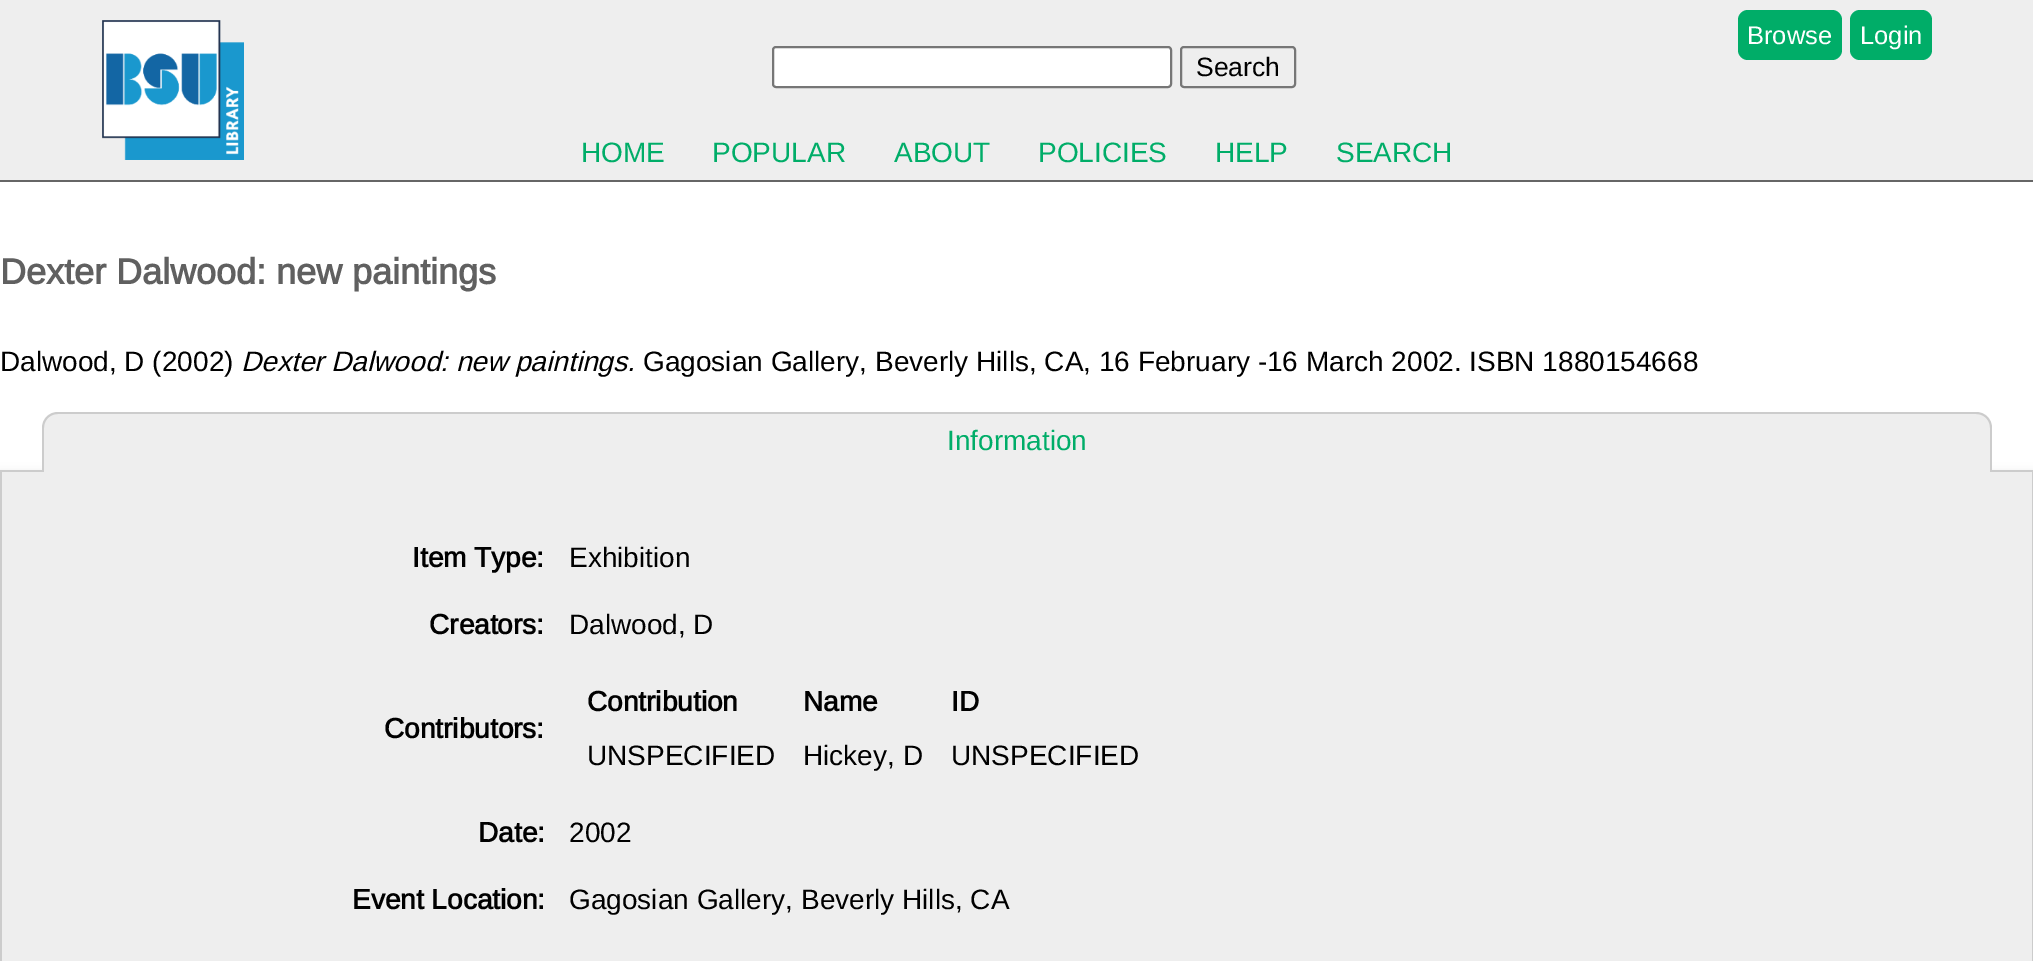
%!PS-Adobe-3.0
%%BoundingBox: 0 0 2033 961
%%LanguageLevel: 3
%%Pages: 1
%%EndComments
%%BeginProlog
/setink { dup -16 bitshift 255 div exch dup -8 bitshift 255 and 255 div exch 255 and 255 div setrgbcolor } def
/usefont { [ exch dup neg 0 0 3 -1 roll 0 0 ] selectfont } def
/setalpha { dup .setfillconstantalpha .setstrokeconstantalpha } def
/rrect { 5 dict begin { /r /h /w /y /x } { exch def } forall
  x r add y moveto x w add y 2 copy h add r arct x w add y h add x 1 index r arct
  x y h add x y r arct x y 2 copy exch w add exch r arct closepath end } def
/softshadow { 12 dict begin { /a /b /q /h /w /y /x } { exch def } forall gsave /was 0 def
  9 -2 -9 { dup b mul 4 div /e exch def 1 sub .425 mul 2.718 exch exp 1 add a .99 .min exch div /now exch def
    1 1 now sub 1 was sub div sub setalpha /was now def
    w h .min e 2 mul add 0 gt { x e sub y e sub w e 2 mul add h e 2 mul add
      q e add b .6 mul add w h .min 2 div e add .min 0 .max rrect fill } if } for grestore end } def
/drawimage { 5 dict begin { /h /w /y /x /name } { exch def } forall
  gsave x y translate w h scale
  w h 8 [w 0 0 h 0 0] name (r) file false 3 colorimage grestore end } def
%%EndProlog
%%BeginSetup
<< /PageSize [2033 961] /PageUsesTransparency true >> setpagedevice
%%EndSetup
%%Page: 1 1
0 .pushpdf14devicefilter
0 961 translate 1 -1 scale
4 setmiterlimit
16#FFFFFF setink
0 0 2033 961 rectfill
16#EEEEEE setink
0 0 2033 180 rectfill
16#666666 setink
0 180 2033 2 rectfill
(img1.raw) 102 20 142 140 drawimage
16#00AD68 setink
1738 10 104 50 10 rrect fill
/LiberationSans-Regular 25.5 usefont
16#FFFFFF setink
1747 44 moveto (Browse) show
16#00AD68 setink
1850 10 82 50 10 rrect fill
16#FFFFFF setink
1860 44 moveto (Login) show
773 47 398 40 3 rrect gsave fill grestore
16#767676 setink
2 setlinewidth
stroke
1181 47 114 40 3 rrect stroke
/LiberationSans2-Regular 26.5 usefont
16#000000 setink
1196 76 moveto (Search) show
/LiberationSans-Regular 28 usefont
16#00AD68 setink
[
    [(HOME) 581 162]
    [(POPULAR) 712 162]
    [(ABOUT) 894 162]
    [(POLICIES) 1038 162]
    [(HELP) 1215 162]
    [(SEARCH) 1336 162]
] { aload pop moveto show } forall
/LiberationSans-Bold 36 usefont
16#606060 setink
0 284 moveto (Dexter Dalwood: new paintings) show
/LiberationSans-Regular 28 usefont
16#000000 setink
0 371 moveto (Dalwood, D \(2002\)) show
/LiberationSans-Italic 28 usefont
241 371 moveto (Dexter Dalwood: new paintings.) show
/LiberationSans-Regular 28 usefont
643 371 moveto (Gagosian Gallery, Beverly Hills, CA, 16 February -16 March 2002. ISBN 1880154668) show
16#646464 setink
0 476 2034 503 0 6 0.3 softshadow
16#CCCCCC setink
0 470 2033 2 rectfill
16#EEEEEE setink
58 414 moveto 1976 414 lineto 1983.5 414 1990 420.5 1990 428 curveto 1990 472 lineto 44 472 lineto 44 428 lineto 44 420.5 50.5 414 58 414 curveto closepath fill
16#CCCCCC setink
58 412 moveto 1976 412 lineto 1985 412 1992 419 1992 428 curveto 1992 472 lineto 42 472 lineto 42 428 lineto 42 419 49 412 58 412 curveto closepath 58 414 moveto 1976 414 lineto 1984 414 1990 420 1990 428 curveto 1990 472 lineto 44 472 lineto 44 428 lineto 44 420 50 414 58 414 curveto closepath eofill
16#00AD68 setink
947 450 moveto (Information) show
[
    [2 472 2030 489 16#EEEEEE]
    [2032 472 1 489 16#CCCCCC]
    [0 472 2 489 16#CCCCCC]
] { aload pop setink rectfill } forall
/LiberationSans-Bold 28 usefont
16#000000 setink
412 567 moveto (Item Type:) show
/LiberationSans-Regular 28 usefont
569 567 moveto (Exhibition) show
/LiberationSans-Bold 28 usefont
429 634 moveto (Creators:) show
/LiberationSans-Regular 28 usefont
569 634 moveto (Dalwood, D) show
/LiberationSans-Bold 28 usefont
[
    [(Contributors:) 384 738]
    [(Contribution) 587 711]
    [(Name) 803 711]
    [(ID) 951 711]
] { aload pop moveto show } forall
/LiberationSans-Regular 28 usefont
[
    [(UNSPECIFIED) 587 765]
    [(Hickey, D) 803 765]
    [(UNSPECIFIED) 951 765]
] { aload pop moveto show } forall
/LiberationSans-Bold 28 usefont
478 842 moveto (Date:) show
/LiberationSans-Regular 28 usefont
569 842 moveto (2002) show
/LiberationSans-Bold 28 usefont
352 909 moveto (Event Location:) show
/LiberationSans-Regular 28 usefont
569 909 moveto (Gagosian Gallery, Beverly Hills, CA) show
.poppdf14devicefilter showpage
%%EOF
